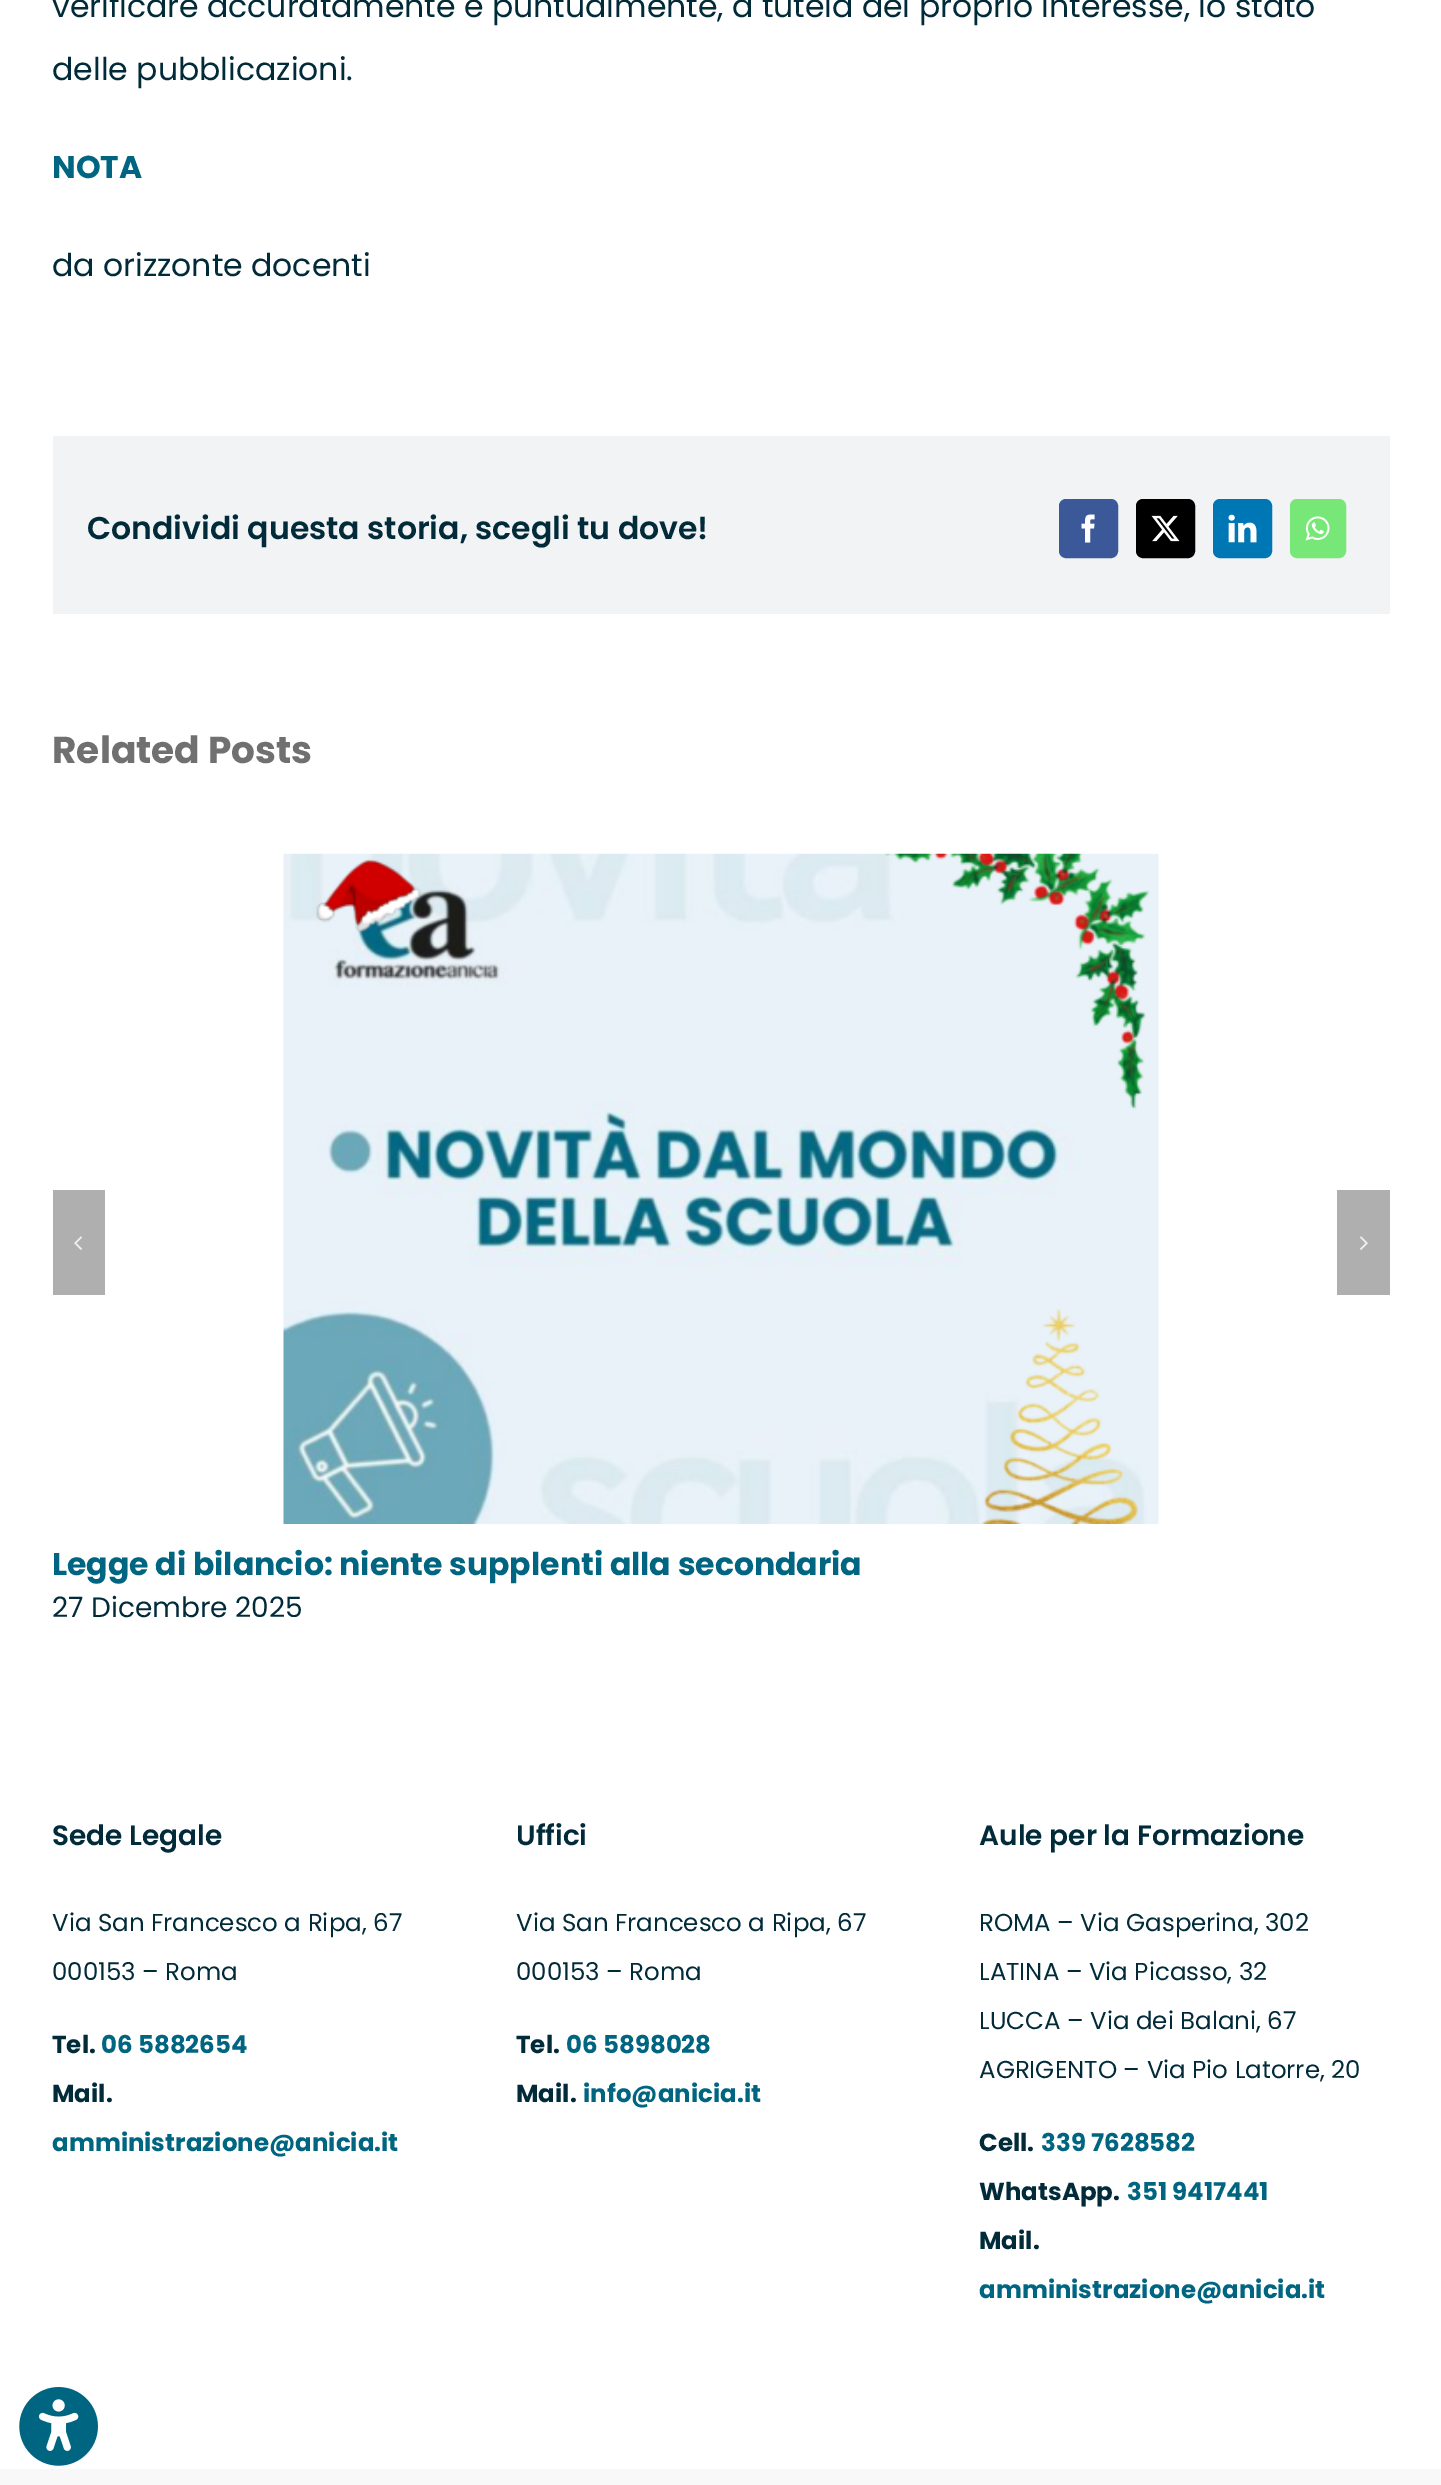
%!PS-Adobe-3.0
%%BoundingBox: 0 0 1441 2485
%%LanguageLevel: 3
%%Pages: 1
%%EndComments
%%BeginProlog
/setink { dup -16 bitshift 255 div exch dup -8 bitshift 255 and 255 div exch 255 and 255 div setrgbcolor } def
/usefont { [ exch dup neg 0 0 3 -1 roll 0 0 ] selectfont } def
/rrect { 5 dict begin { /r /h /w /y /x } { exch def } forall
  x r add y moveto x w add y 2 copy h add r arct x w add y h add x 1 index r arct
  x y h add x y r arct x y 2 copy exch w add exch r arct closepath end } def
/drawimage { 5 dict begin { /h /w /y /x /name } { exch def } forall
  gsave x y translate w h scale
  w h 8 [w 0 0 h 0 0] name (r) file false 3 colorimage grestore end } def
%%EndProlog
%%BeginSetup
<< /PageSize [1441 2485] >> setpagedevice
%%EndSetup
%%Page: 1 1
0 2485 translate 1 -1 scale
4 setmiterlimit
16#FFFFFF setink
0 0 1441 2485 rectfill
/Poppins-Regular 31.5 usefont
16#022B3A setink
52 17 moveto (verificare accuratamente e puntualmente, a tutela del proprio interesse, lo stato) show
52 80 moveto (delle pubblicazioni.) show
/Poppins-Bold 31.5 usefont
16#006580 setink
52 178 moveto (NOTA) show
/Poppins-Regular 31.5 usefont
16#022B3A setink
52 276 moveto (da orizzonte docenti) show
16#F2F3F5 setink
53 436 1337 178 rectfill
/Poppins-SemiBold 31.5 usefont
16#022B3A setink
87 539 moveto (Condividi questa storia, scegli tu dove!) show
16#3B5998 setink
1060 500 57 57 6 rrect gsave fill grestore
2 setlinewidth
stroke
(img1.raw) 1081 514 14 29 drawimage
16#000000 setink
1137 500 57 57 6 rrect gsave fill grestore
stroke
(img2.raw) 1151 515 29 27 drawimage
16#0077B5 setink
1214 500 57 57 6 rrect gsave fill grestore
stroke
(img3.raw) 1228 514 29 29 drawimage
16#77E878 setink
1291 500 54 57 6 rrect gsave fill grestore
stroke
(img4.raw) 1305 516 25 25 drawimage
/Poppins-Bold 37.5 usefont
16#707070 setink
52 763 moveto (Related Posts) show
16#AFAFAF setink
53 1190 52 105 rectfill
(img5.raw) 74 1236 8 14 drawimage
1337 1190 53 105 rectfill
(img6.raw) 1360 1236 8 14 drawimage
(img7.raw) 283 853 876 671 drawimage
/Poppins-Bold 31.5 usefont
16#006580 setink
52 1575 moveto (Legge di bilancio: niente supplenti alla secondaria) show
/Poppins-Regular 28 usefont
16#022B3A setink
52 1617 moveto (27 Dicembre 2025) show
/Poppins-SemiBold 28 usefont
52 1845 moveto (Sede Legale) show
/Poppins-Regular 24.5 usefont
52 1931 moveto (Via San Francesco a Ripa, 67) show
52 1980 moveto (000153 – Roma) show
/Poppins-Bold 24.5 usefont
52 2053 moveto (Tel.) show
16#006580 setink
101 2053 moveto (06 5882654) show
16#022B3A setink
52 2102 moveto (Mail.) show
16#006580 setink
52 2151 moveto (amministrazione@anicia.it) show
/Poppins-SemiBold 28 usefont
16#022B3A setink
516 1845 moveto (Uffici) show
/Poppins-Regular 24.5 usefont
516 1931 moveto (Via San Francesco a Ripa, 67) show
516 1980 moveto (000153 – Roma) show
/Poppins-Bold 24.5 usefont
516 2053 moveto (Tel.) show
16#006580 setink
566 2053 moveto (06 5898028) show
16#022B3A setink
516 2102 moveto (Mail.) show
16#006580 setink
583 2102 moveto (info@anicia.it) show
/Poppins-SemiBold 28 usefont
16#022B3A setink
979 1845 moveto (Aule per la Formazione) show
/Poppins-Regular 24.5 usefont
[
    [(ROMA – Via Gasperina, 302) 979 1931]
    [(LATINA – Via Picasso, 32) 979 1980]
    [(LUCCA – Via dei Balani, 67) 979 2029]
    [(AGRIGENTO – Via Pio Latorre, 20) 979 2078]
] { aload pop moveto show } forall
/Poppins-Bold 24.5 usefont
979 2151 moveto (Cell.) show
16#006580 setink
1041 2151 moveto (339 7628582) show
16#022B3A setink
979 2200 moveto (WhatsApp.) show
16#006580 setink
1127 2200 moveto (351 9417441) show
16#022B3A setink
979 2249 moveto (Mail.) show
16#006580 setink
979 2298 moveto (amministrazione@anicia.it) show
16#F8F8F8 setink
0 2469 1441 16 rectfill
(img8.raw) 19 2387 79 79 drawimage
showpage
%%EOF
